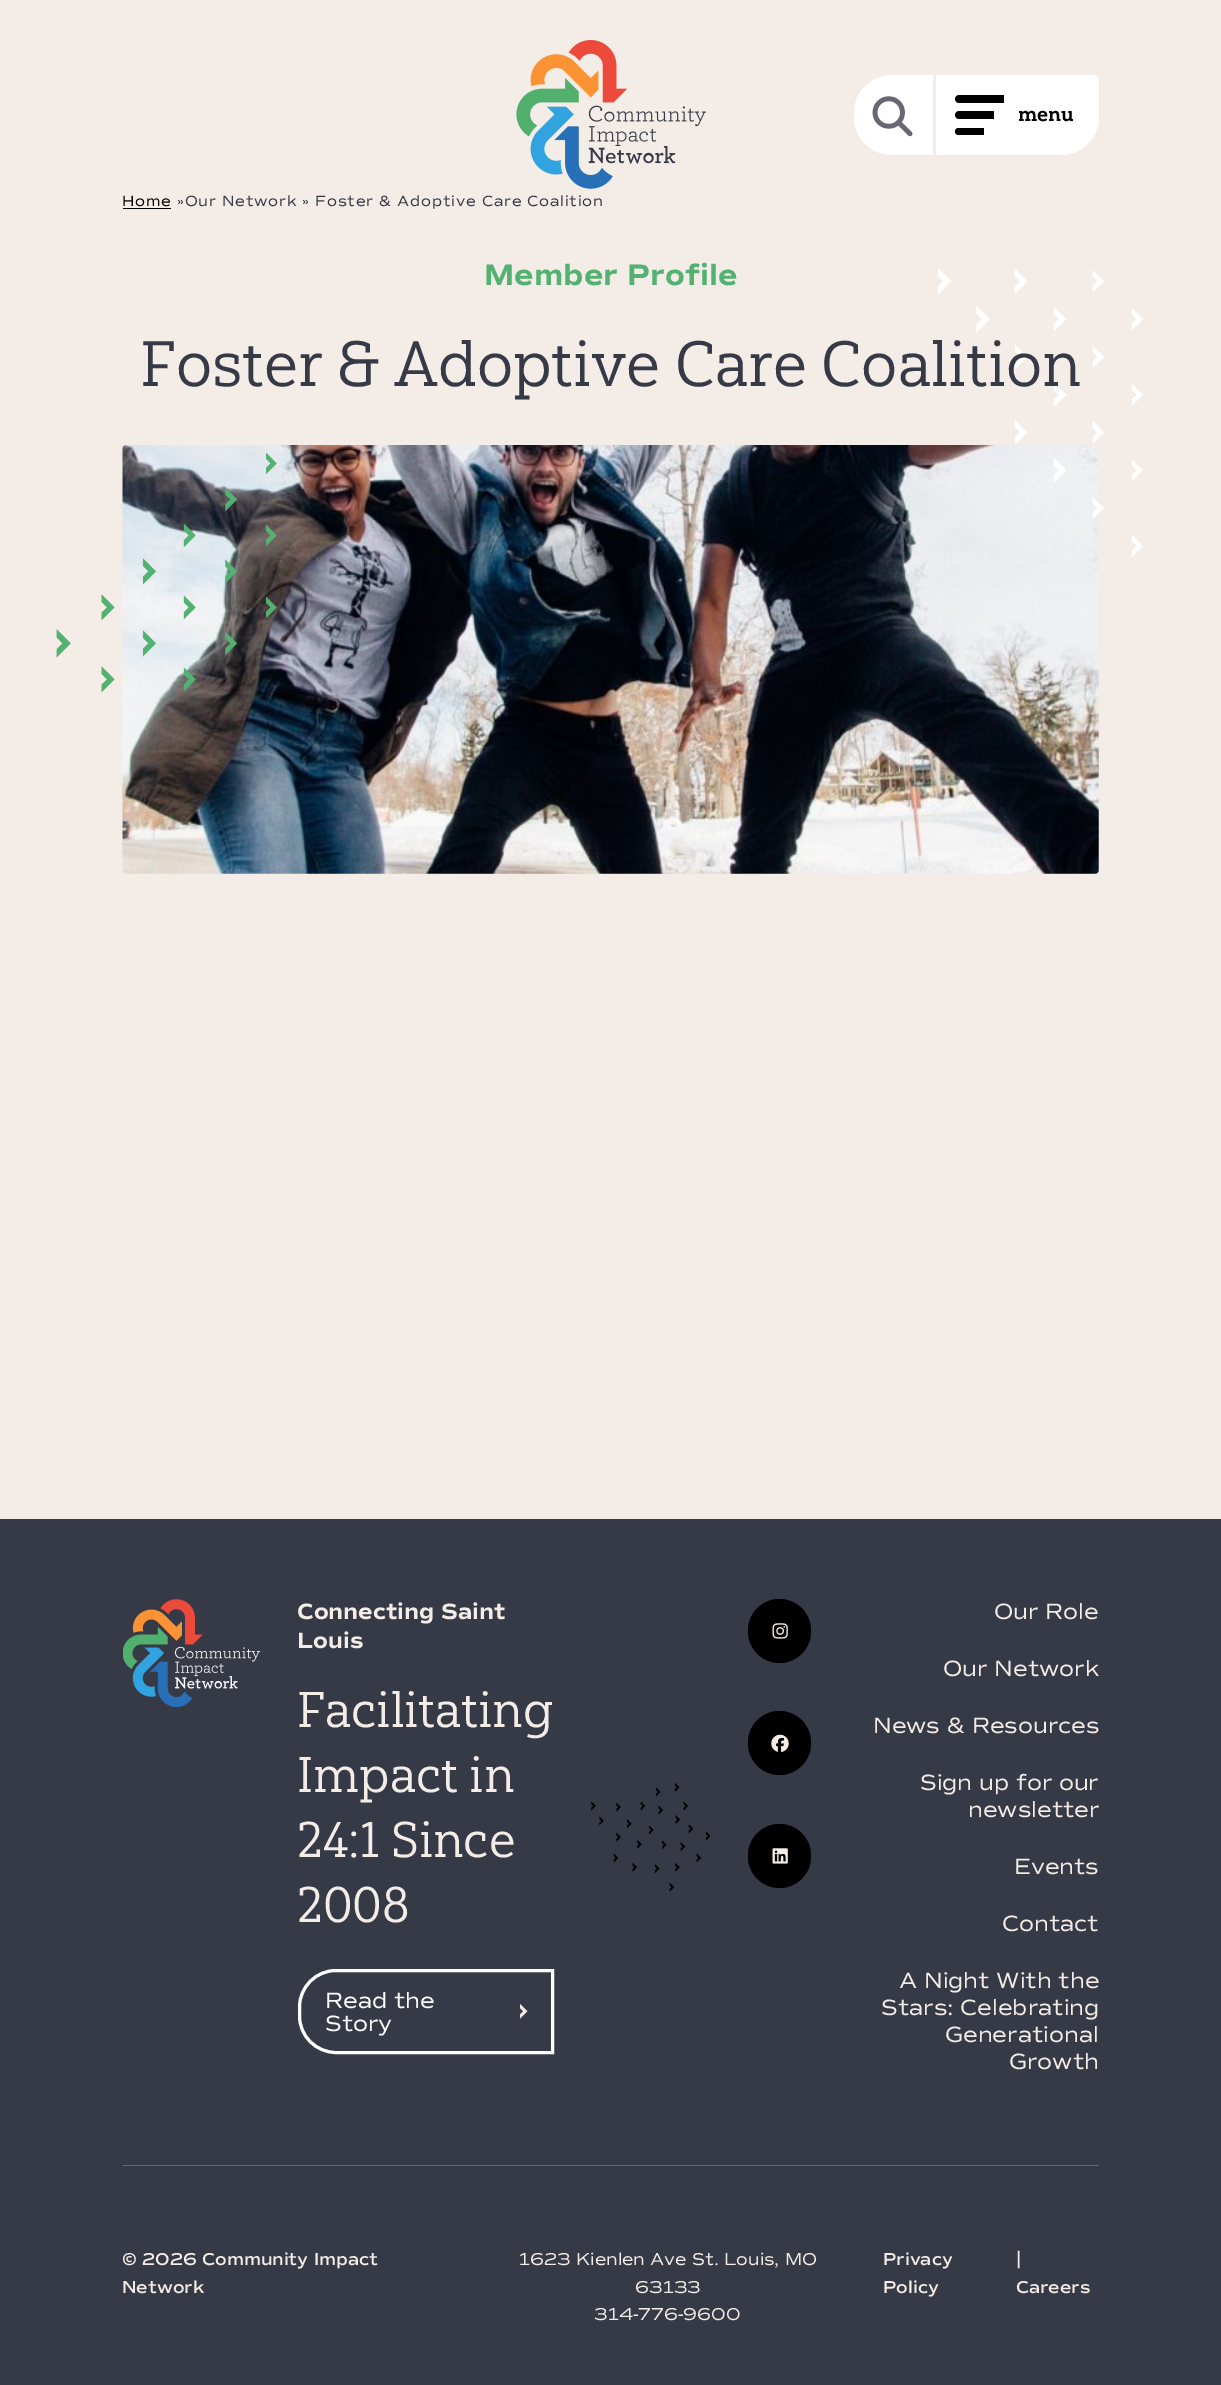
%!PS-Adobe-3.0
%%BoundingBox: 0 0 1221 2385
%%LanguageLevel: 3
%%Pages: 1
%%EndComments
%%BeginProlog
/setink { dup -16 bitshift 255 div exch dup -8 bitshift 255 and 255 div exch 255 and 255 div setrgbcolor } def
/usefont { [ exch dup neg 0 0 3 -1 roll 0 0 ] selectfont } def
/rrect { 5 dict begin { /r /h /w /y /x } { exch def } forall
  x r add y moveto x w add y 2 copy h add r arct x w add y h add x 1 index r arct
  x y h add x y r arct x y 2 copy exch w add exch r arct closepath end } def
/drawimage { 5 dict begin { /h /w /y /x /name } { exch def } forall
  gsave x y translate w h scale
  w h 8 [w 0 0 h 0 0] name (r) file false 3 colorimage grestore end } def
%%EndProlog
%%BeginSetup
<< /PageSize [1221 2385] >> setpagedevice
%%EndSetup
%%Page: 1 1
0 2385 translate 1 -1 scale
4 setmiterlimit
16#F4ECE6 setink
0 0 1221 2385 rectfill
(img1.raw) 516 40 190 149 drawimage
16#FFFFFF setink
892 75 moveto 933 75 lineto 933 155 lineto 892 155 lineto 871 155 854 138 854 117 curveto 854 113 lineto 854 92 871 75 892 75 curveto closepath fill
(img2.raw) 872 96 41 41 drawimage
936 75 moveto 1093 75 lineto 1096.5 75 1099 77.5 1099 81 curveto 1099 117 lineto 1099 138 1082 155 1061 155 curveto 936 155 lineto closepath fill
16#000000 setink
959 95 moveto 1003.5 95 lineto 1004 95 1004 95 1004 95.5 curveto 1004 102.5 lineto 1004 103 1004 103 1003.5 103 curveto 959 103 lineto 957 103 955 101 955 99 curveto 955 97 957 95 959 95 curveto closepath fill
959 111 moveto 993.5 111 lineto 994 111 994 111 994 111.5 curveto 994 118.5 lineto 994 119 994 119 993.5 119 curveto 959 119 lineto 957 119 955 117 955 115 curveto 955 113 957 111 959 111 curveto closepath fill
958.5 128 moveto 983.5 128 lineto 984 128 984 128 984 128.5 curveto 984 134.5 lineto 984 135 984 135 983.5 135 curveto 958.5 135 lineto 956.5 135 955 133.5 955 131.5 curveto 955 129.5 956.5 128 958.5 128 curveto closepath fill
/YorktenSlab-ExtraBold 20 usefont
1018 121 moveto (menu) show
/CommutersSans-Regular 15 usefont
122 206 moveto 0.75 0 (Home) ashow
123 208 48 1 rectfill
16#363946 setink
177 206 moveto 0.75 0 (»Our Network » Foster & Adoptive Care Coalition) ashow
/CommutersSans-Bold 30 usefont
16#53B171 setink
484 285 moveto 0.1 0 (Member Profile) ashow
(img4.raw) 122 445 977 429 drawimage
(img3.raw) 938 268 205 289 drawimage
/YorktenSlab-Medium 63.75 usefont
16#363946 setink
140 386 moveto (Foster & Adoptive Care Coalition) show
(img5.raw) 56 453 221 240 drawimage
0 1519 1221 866 rectfill
(img6.raw) 123 1599 137 108 drawimage
/CommutersSans-Bold 22.5 usefont
16#F4ECE6 setink
297 1619 moveto (Connecting Saint) show
297 1648 moveto (Louis) show
/YorktenSlab-Medium 50 usefont
[
    [(Facilitating) 297 1727]
    [(Impact in) 297 1792]
    [(24:1 Since) 297 1857]
    [(2008) 297 1922]
] { aload pop moveto show } forall
16#FFFFFF setink
3 setlinewidth
336 1970.5 moveto 552.5 1970.5 lineto 552.5 2052.5 lineto 336 2052.5 lineto 316 2052.5 299.5 2036 299.5 2016 curveto 299.5 2007 lineto 299.5 1987 316 1970.5 336 1970.5 curveto closepath stroke
/CommutersSans-Regular 22.5 usefont
325 2008 moveto (Read the) show
(img7.raw) 520 2004 8 15 drawimage
325 2031 moveto (Story) show
(img8.raw) 591 1783 119 109 drawimage
16#000000 setink
748 1599 63 64 31.5 rrect fill
(img9.raw) 772 1623 16 16 drawimage
748 1711 63 64 31.5 rrect fill
(img10.raw) 771 1734 18 19 drawimage
748 1824 63 64 31.5 rrect fill
(img11.raw) 772 1848 16 16 drawimage
16#F4ECE6 setink
[
    [(Our Role) 994 1619]
    [(Our Network) 943 1676]
    [(News & Resources) 873 1733]
    [(Sign up for our) 920 1790]
    [(newsletter) 968 1817]
    [(Events) 1014 1874]
    [(Contact) 1002 1931]
    [(A Night With the) 899 1988]
    [(Stars: Celebrating) 881 2015]
    [(Generational) 945 2042]
    [(Growth) 1009 2069]
] { aload pop moveto show } forall
16#696773 setink
123 2165 976 1 rectfill
/CommutersSans-SemiBold 17.5 usefont
16#F4ECE6 setink
122 2265 moveto (© 2026 Community Impact) show
122 2293 moveto (Network) show
/CommutersSans-Regular 17.5 usefont
[
    [(1623 Kienlen Ave St. Louis, MO) 519 2265]
    [(63133) 635 2293]
    [(314-776-9600) 594 2320]
] { aload pop moveto show } forall
/CommutersSans-SemiBold 17.5 usefont
[
    [(Privacy) 883 2265]
    [(Policy) 883 2293]
    [(|) 1016 2265]
    [(Careers) 1016 2293]
] { aload pop moveto show } forall
showpage
%%EOF
